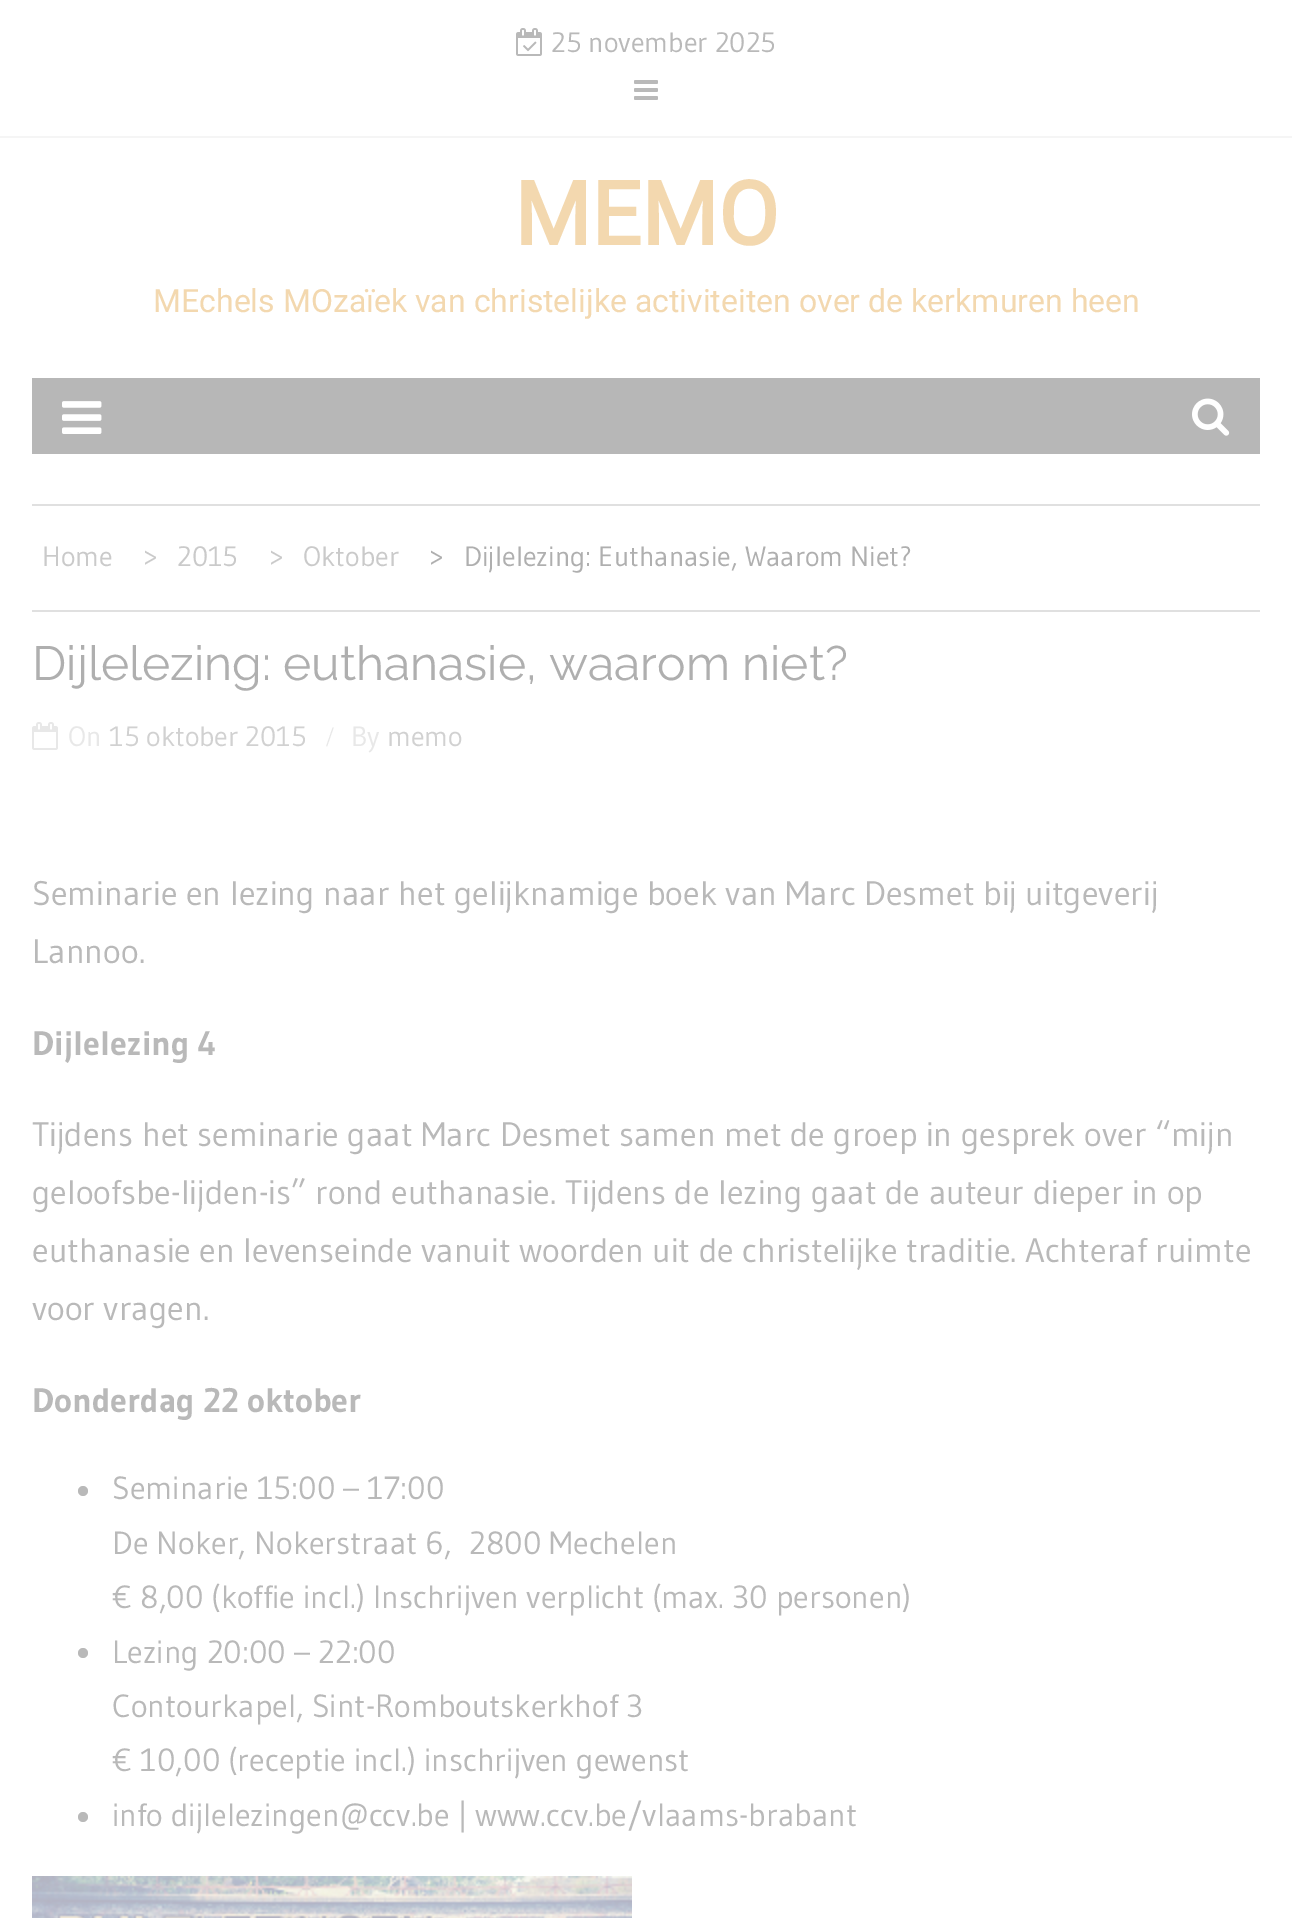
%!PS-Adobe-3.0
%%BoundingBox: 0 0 1292 1918
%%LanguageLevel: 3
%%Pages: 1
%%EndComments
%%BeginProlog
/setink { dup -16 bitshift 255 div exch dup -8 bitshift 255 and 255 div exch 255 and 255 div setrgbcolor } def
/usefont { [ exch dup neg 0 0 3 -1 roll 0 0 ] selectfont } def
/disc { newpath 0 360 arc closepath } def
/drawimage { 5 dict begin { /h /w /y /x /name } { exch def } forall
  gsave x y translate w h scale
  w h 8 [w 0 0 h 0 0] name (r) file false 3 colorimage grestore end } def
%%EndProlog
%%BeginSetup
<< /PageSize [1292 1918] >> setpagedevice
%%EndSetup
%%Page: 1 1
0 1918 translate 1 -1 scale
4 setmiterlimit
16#FFFFFF setink
0 0 1292 1918 rectfill
16#F5F5F5 setink
0 136 1292 2 rectfill
(img1.raw) 516 28 26 28 drawimage
/Gudea-Regular 28 usefont
16#B9B9B9 setink
551 52 moveto (25 november 2025) show
(img2.raw) 634 80 24 20 drawimage
/Roboto-Bold 88 usefont
16#F3D8AF setink
514 245 moveto (MEMO) show
/Roboto-Regular 32 usefont
153 312 moveto (MEchels MOzaïek van christelijke activiteiten over de kerkmuren heen) show
16#B7B7B7 setink
32 378 1228 76 rectfill
(img3.raw) 62 401 40 33 drawimage
(img4.raw) 1192 398 38 38 drawimage
16#E0E0E0 setink
32 504 1228 2 rectfill
32 610 1228 2 rectfill
/Gudea-Regular 28 usefont
16#CACACA setink
[
    [(Home) 42 566]
    [(>) 143 566]
    [(2015) 177 566]
    [(>) 269 566]
    [(Oktober) 303 566]
] { aload pop moveto show } forall
16#AFAFAF setink
429 566 moveto (>) show
464 566 moveto (Dijlelezing: Euthanasie, Waarom Niet?) show
/Raleway-Regular 48 usefont
32 680 moveto (Dijlelezing: euthanasie, waarom niet?) show
(img5.raw) 32 722 26 28 drawimage
/Gudea-Regular 28 usefont
16#E8E8E8 setink
68 746 moveto (On) show
16#D1D1D1 setink
109 746 moveto (15 oktober 2015) show
/LiberationSerif-Regular 28 usefont
16#E8E8E8 setink
326 746 moveto (/) show
/Gudea-Regular 28 usefont
351 746 moveto (By) show
16#D1D1D1 setink
387 746 moveto (memo) show
/Gudea-Regular 34 usefont
16#B9B9B9 setink
32 905 moveto (Seminarie en lezing naar het gelijknamige boek van Marc Desmet bij uitgeverij) show
32 963 moveto (Lannoo.) show
/Gudea-Bold 34 usefont
32 1055 moveto (Dijlelezing 4) show
/Gudea-Regular 34 usefont
[
    [(Tijdens het seminarie gaat Marc Desmet samen met de groep in gesprek over “mijn) 32 1146]
    [(geloofsbe-lijden-is” rond euthanasie. Tijdens de lezing gaat de auteur dieper in op) 32 1204]
    [(euthanasie en levenseinde vanuit woorden uit de christelijke traditie. Achteraf ruimte) 32 1262]
    [(voor vragen.) 32 1320]
] { aload pop moveto show } forall
/Gudea-Bold 34 usefont
32 1412 moveto (Donderdag 22 oktober) show
83 1491 5 disc fill
/Gudea-Regular 32 usefont
[
    [(Seminarie 15:00 – 17:00) 112 1499]
    [(De Noker, Nokerstraat 6,) 112 1554]
    [(2800 Mechelen) 469 1554]
    [(€ 8,00 \(koffie incl.\) Inschrijven verplicht \(max. 30 personen\)) 112 1608]
] { aload pop moveto show } forall
83 1653 5 disc fill
[
    [(Lezing 20:00 – 22:00) 112 1663]
    [(Contourkapel, Sint-Romboutskerkhof 3) 112 1717]
    [(€ 10,00 \(receptie incl.\) inschrijven gewenst) 112 1771]
] { aload pop moveto show } forall
83 1817 5 disc fill
112 1826 moveto (info dijlelezingen@ccv.be | www.ccv.be/vlaams-brabant) show
(img6.raw) 32 1876 600 42 drawimage
showpage
%%EOF
